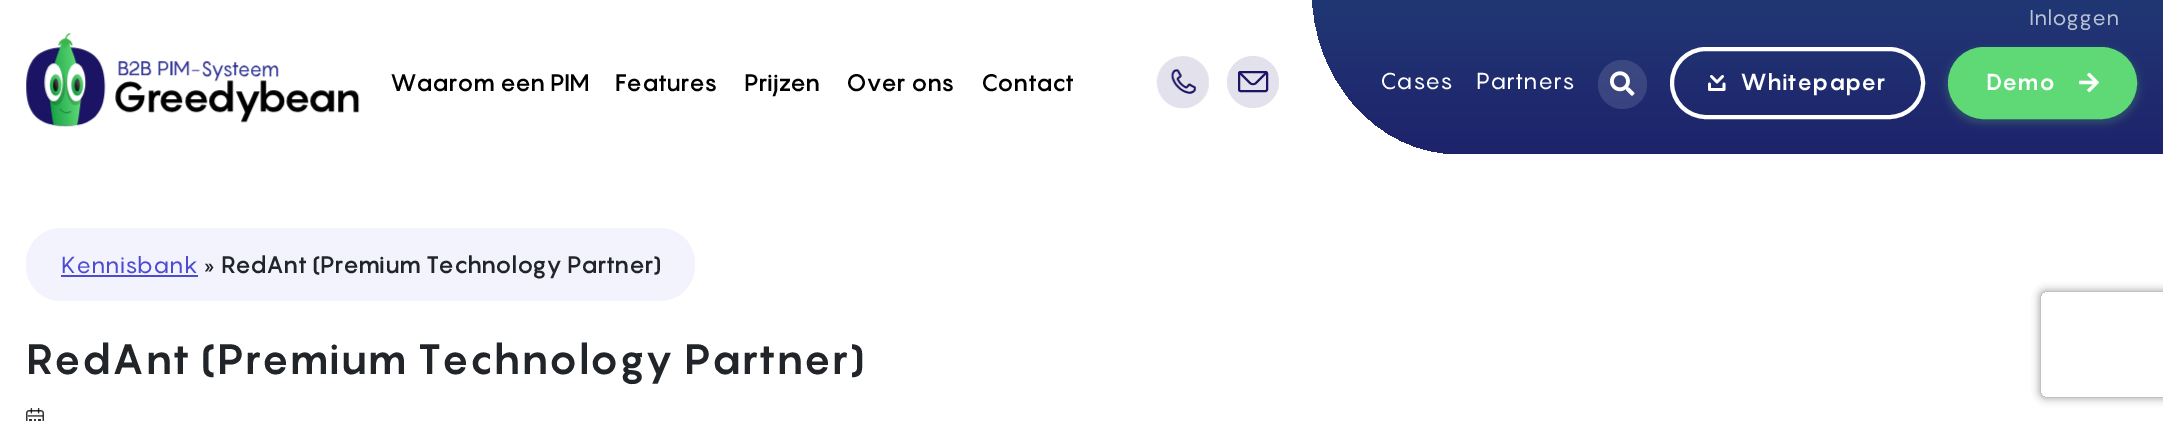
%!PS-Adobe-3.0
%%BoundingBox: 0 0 2163 421
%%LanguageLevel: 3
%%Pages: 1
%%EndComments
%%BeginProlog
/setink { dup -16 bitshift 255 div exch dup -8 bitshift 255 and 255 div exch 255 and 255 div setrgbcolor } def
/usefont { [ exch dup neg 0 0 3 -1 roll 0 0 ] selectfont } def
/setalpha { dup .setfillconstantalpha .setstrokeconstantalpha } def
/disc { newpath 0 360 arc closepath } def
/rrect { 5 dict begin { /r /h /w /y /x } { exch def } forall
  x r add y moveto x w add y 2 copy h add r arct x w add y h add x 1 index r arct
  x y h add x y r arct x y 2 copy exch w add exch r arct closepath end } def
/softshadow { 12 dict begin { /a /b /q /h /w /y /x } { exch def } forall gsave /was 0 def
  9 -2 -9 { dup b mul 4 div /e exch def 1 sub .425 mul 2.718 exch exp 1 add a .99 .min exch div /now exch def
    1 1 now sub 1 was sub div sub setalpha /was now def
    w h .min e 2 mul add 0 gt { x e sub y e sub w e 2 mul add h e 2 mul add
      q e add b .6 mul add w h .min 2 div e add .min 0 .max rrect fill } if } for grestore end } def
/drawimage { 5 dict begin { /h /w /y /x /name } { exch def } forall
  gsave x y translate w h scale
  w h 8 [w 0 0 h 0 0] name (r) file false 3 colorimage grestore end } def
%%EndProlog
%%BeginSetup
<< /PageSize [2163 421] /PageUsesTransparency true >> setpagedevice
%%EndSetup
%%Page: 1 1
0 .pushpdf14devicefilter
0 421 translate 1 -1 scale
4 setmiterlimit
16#FFFFFF setink
0 0 2163 421 rectfill
gsave 1418 -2 moveto 2163 -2 lineto 2163 154 lineto 1471 154 lineto 1441.5 154 1418 130.5 1418 101 curveto closepath clip newpath
<< /ShadingType 2 /ColorSpace /DeviceRGB /Coords [1904 -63 1904 154] /Extend [true true] /Function << /FunctionType 3 /Domain [0 1] /Functions [<< /FunctionType 2 /Domain [0 1] /C0 [0.133 0.247 0.467] /C1 [0.133 0.247 0.467] /N 1 >> << /FunctionType 2 /Domain [0 1] /C0 [0.133 0.247 0.467] /C1 [0.118 0.137 0.42] /N 1 >>] /Bounds [0.01] /Encode [0 1 0 1] >> >> shfill grestore
gsave 1312 -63 moveto 1514 -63 lineto 1514 154 lineto 1459 154 lineto 1378 154 1312 80 1312 -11 curveto closepath clip newpath
<< /ShadingType 2 /ColorSpace /DeviceRGB /Coords [1396 -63 1396 154] /Extend [true true] /Function << /FunctionType 3 /Domain [0 1] /Functions [<< /FunctionType 2 /Domain [0 1] /C0 [0.133 0.247 0.467] /C1 [0.133 0.247 0.467] /N 1 >> << /FunctionType 2 /Domain [0 1] /C0 [0.133 0.247 0.467] /C1 [0.118 0.137 0.42] /N 1 >>] /Bounds [0.01] /Encode [0 1 0 1] >> >> shfill grestore
/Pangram-Regular 21 usefont
16#BCC2D5 setink
2029 25 moveto (Inloggen) show
(img1.raw) 26 33 334 94 drawimage
/Pangram-Bold 22.75 usefont
16#000000 setink
[
    [(Waarom een PIM) 390 91]
    [(Features) 615 91]
    [(Prijzen) 744 91]
    [(Over ons) 846 91]
    [(Contact) 981 91]
] { aload pop moveto show } forall
(img2.raw) 1156 56 53 53 drawimage
16#E3E2EC setink
1253 82 26 disc fill
16#1B1464 setink
2 setlinewidth
1239 72 28 19 1.5 rrect stroke
1.8 setlinewidth
1 setlinejoin
1239 72 moveto 1250.5 83.5 lineto 1252 84.5 1254 84.5 1255.5 83.5 curveto 1267 72 lineto stroke
/Pangram-Regular 22.75 usefont
16#FFFFFF setink
1380 89 moveto (Cases) show
1476 89 moveto (Partners) show
0.12 setalpha
1622.5 84.5 24.5 disc fill
1 setalpha
(img3.raw) 1610 71 25 25 drawimage
4 setlinewidth
0 setlinejoin
1672 49 251 68 34 rrect stroke
2.7 setlinewidth
1 setlinecap
1 setlinejoin
1709.5 84 moveto 1709.5 89.5 lineto 1724 89.5 lineto 1724 84 lineto 1722.5 76.5 moveto 1717 82 lineto 1711.5 76.5 lineto stroke
/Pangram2-Bold 22.75 usefont
1740 90 moveto (Whitepaper) show
16#5FD976 setink
1946 49 193 75 37.5 3.5 0.2 softshadow
1950 49 185 68 34 rrect gsave fill grestore
4 setlinewidth
0 setlinecap
0 setlinejoin
stroke
16#FFFFFF setink
1986 90 moveto (Demo) show
(img4.raw) 2079 72 20 21 drawimage
16#F3F3FE setink
26 228 669 73 35 rrect fill
/Pangram-Regular 22.75 usefont
16#4D4BD1 setink
61 273 moveto (Kennisbank) show
61 275 137 2 rectfill
16#212529 setink
204 273 moveto (») show
/Pangram-Bold 22.75 usefont
221 273 moveto (RedAnt \(Premium Technology Partner\)) show
/Pangram2-Bold 42 usefont
26 374 moveto (RedAnt \(Premium Technology Partner\)) show
(img5.raw) 26 408 18 13 drawimage
gsave
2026 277 moveto 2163 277 lineto 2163 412 lineto 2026 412 lineto closepath 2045 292 moveto 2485 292 lineto 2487 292 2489 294 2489 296 curveto 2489 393 lineto 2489 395 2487 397 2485 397 curveto 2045 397 lineto 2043 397 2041 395 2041 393 curveto 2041 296 lineto 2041 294 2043 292 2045 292 curveto closepath eoclip newpath
16#808080 setink
2041 292 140 105 4 4.5 1 softshadow
grestore
.poppdf14devicefilter showpage
%%EOF
